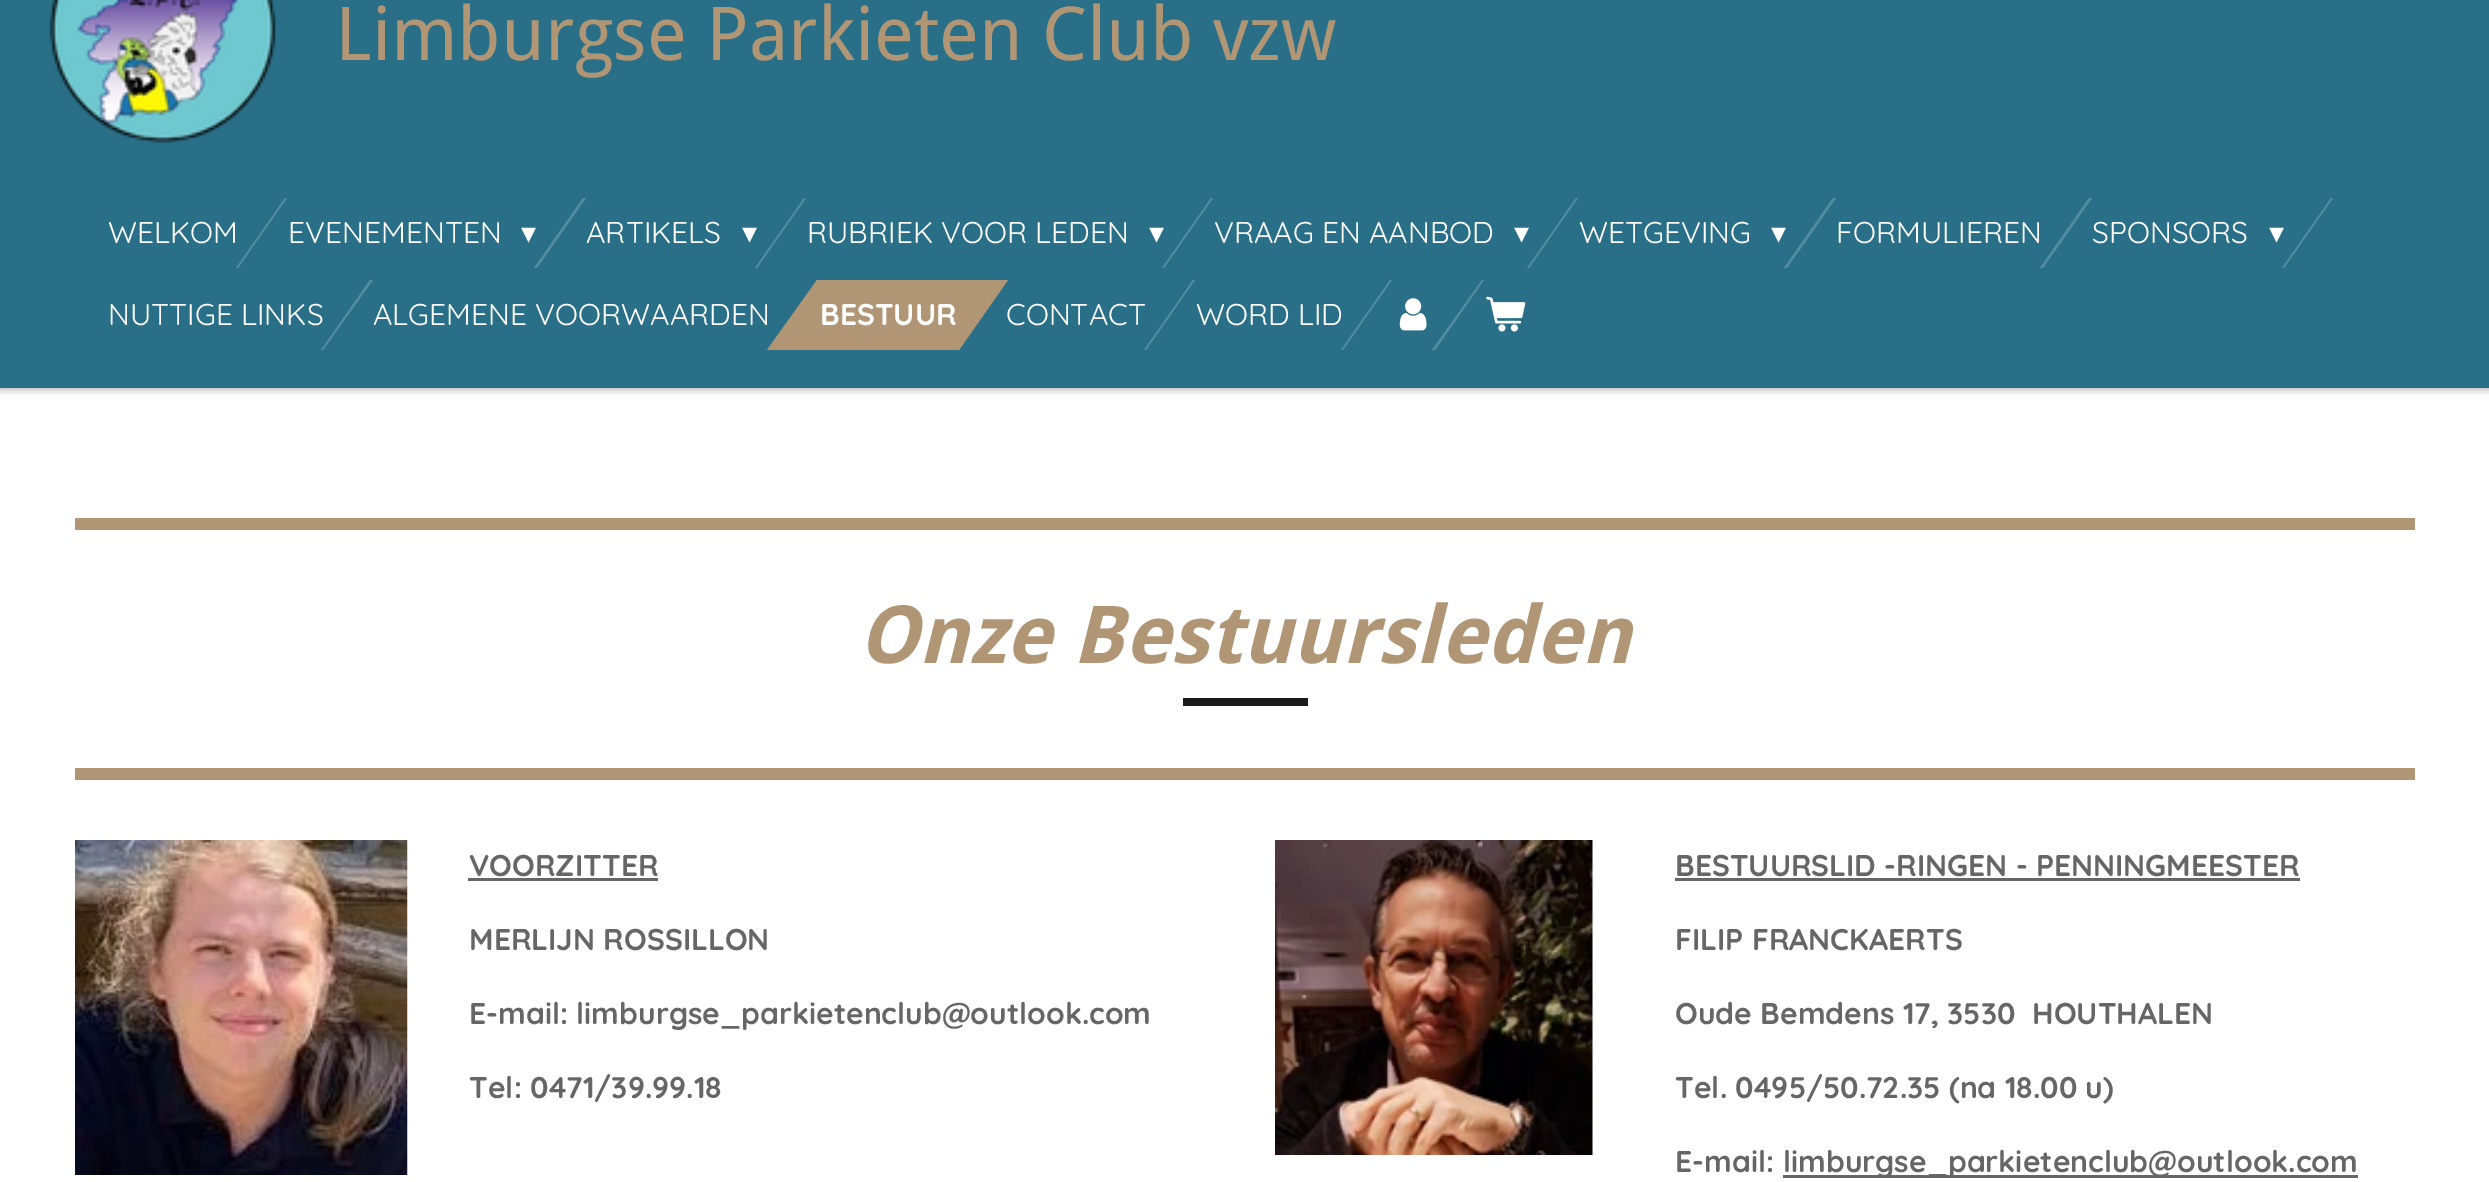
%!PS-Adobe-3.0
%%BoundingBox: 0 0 2489 1182
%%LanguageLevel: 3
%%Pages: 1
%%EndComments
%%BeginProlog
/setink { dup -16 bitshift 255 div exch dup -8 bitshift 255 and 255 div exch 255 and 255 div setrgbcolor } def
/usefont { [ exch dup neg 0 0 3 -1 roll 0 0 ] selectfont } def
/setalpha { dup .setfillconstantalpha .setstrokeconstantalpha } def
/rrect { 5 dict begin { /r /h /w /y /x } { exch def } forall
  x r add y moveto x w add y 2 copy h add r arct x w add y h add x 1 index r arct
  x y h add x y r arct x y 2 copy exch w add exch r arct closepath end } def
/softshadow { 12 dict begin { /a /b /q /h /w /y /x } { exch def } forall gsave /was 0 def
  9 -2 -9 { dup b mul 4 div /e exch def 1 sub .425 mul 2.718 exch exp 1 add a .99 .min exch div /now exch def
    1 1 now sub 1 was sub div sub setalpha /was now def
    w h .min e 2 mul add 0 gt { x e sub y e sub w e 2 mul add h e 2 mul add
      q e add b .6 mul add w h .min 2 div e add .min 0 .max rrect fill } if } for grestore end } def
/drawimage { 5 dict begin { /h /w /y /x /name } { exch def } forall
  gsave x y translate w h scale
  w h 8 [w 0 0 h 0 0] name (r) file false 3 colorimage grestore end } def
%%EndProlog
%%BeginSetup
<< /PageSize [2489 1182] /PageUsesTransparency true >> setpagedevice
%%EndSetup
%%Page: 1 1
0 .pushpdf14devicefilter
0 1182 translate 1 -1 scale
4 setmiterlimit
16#FFFFFF setink
0 0 2489 1182 rectfill
16#000000 setink
0 -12 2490 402 0 4 0.3 softshadow
16#296F87 setink
0 0 2489 388 rectfill
(img1.raw) 49 0 227 144 drawimage
/DroidSans-Regular 74.4 usefont
16#B19676 setink
335 60 moveto (Limburgse Parkieten Club vzw) show
/Quicksand-Regular 30 usefont
16#FFFFFF setink
108 243 moveto (WELKOM) show
16#548C9F setink
285 198 moveto 287 198 lineto 238 268 lineto 236 268 lineto closepath fill
16#FFFFFF setink
288 243 moveto (EVENEMENTEN) show
16#548C9F setink
583 198 moveto 586 198 lineto 537 268 lineto 534 268 lineto closepath fill
/DejaVuSans-Regular 30 usefont
16#FFFFFF setink
521 243 moveto (▾) show
/Quicksand-Regular 30 usefont
586 243 moveto (ARTIKELS) show
16#548C9F setink
804 198 moveto 806 198 lineto 757 268 lineto 755 268 lineto closepath fill
/DejaVuSans-Regular 30 usefont
16#FFFFFF setink
742 243 moveto (▾) show
/Quicksand-Regular 30 usefont
807 243 moveto (RUBRIEK VOOR LEDEN) show
16#548C9F setink
1211 198 moveto 1213 198 lineto 1164 268 lineto 1162 268 lineto closepath fill
/DejaVuSans-Regular 30 usefont
16#FFFFFF setink
1149 243 moveto (▾) show
/Quicksand-Regular 30 usefont
1214 243 moveto (VRAAG EN AANBOD) show
16#548C9F setink
1576 198 moveto 1578 198 lineto 1529 268 lineto 1527 268 lineto closepath fill
/DejaVuSans-Regular 30 usefont
16#FFFFFF setink
1514 243 moveto (▾) show
/Quicksand-Regular 30 usefont
1579 243 moveto (WETGEVING) show
16#548C9F setink
1833 198 moveto 1836 198 lineto 1787 268 lineto 1784 268 lineto closepath fill
/DejaVuSans-Regular 30 usefont
16#FFFFFF setink
1771 243 moveto (▾) show
/Quicksand-Regular 30 usefont
1836 243 moveto (FORMULIEREN) show
16#548C9F setink
2089 198 moveto 2092 198 lineto 2043 268 lineto 2040 268 lineto closepath fill
16#FFFFFF setink
2092 243 moveto (SPONSORS) show
16#548C9F setink
2331 198 moveto 2333 198 lineto 2284 268 lineto 2282 268 lineto closepath fill
/DejaVuSans-Regular 30 usefont
16#FFFFFF setink
2269 243 moveto (▾) show
16#548C9F setink
370 280 moveto 373 280 lineto 323 350 lineto 321 350 lineto closepath fill
/Quicksand-Regular 30 usefont
16#FFFFFF setink
108 325 moveto (NUTTIGE LINKS) show
373 325 moveto (ALGEMENE VOORWAARDEN) show
16#548C9F setink
1193 280 moveto 1195 280 lineto 1146 350 lineto 1144 350 lineto closepath fill
16#FFFFFF setink
1006 325 moveto (CONTACT) show
16#B19676 setink
817 280 moveto 1008 280 lineto 959 350 lineto 767 350 lineto closepath fill
/Quicksand-Bold 30 usefont
16#FFFFFF setink
820 325 moveto (BESTUUR) show
16#548C9F setink
1390 280 moveto 1392 280 lineto 1343 350 lineto 1341 350 lineto closepath fill
/Quicksand-Regular 30 usefont
16#FFFFFF setink
1196 325 moveto (WORD LID) show
(img2.raw) 1399 298 28 33 drawimage
16#548C9F setink
1482 280 moveto 1484 280 lineto 1435 350 lineto 1432 350 lineto closepath fill
(img3.raw) 1486 296 40 36 drawimage
16#B19676 setink
75 518 2340 12 rectfill
/DroidSans-BoldItalic 80 usefont
858 663 moveto (Onze Bestuursleden) show
16#1A1A1A setink
1183 698 125 8 rectfill
16#B19676 setink
75 768 2340 12 rectfill
(img4.raw) 75 840 333 335 drawimage
/Quicksand-Bold 30 usefont
16#666666 setink
469 876 moveto (VOORZITTER) show
468 878 190 3 rectfill
[
    [(MERLIJN ROSSILLON) 469 950]
    [(E-mail: limburgse_parkietenclub@outlook.com) 469 1024]
    [(Tel: 0471/39.99.18) 469 1098]
] { aload pop moveto show } forall
(img5.raw) 1275 840 318 315 drawimage
1675 876 moveto (BESTUURSLID -RINGEN - PENNINGMEESTER) show
1675 878 625 3 rectfill
[
    [(FILIP FRANCKAERTS) 1675 950]
    [(Oude Bemdens 17, 3530  HOUTHALEN) 1675 1024]
    [(Tel. 0495/50.72.35 \(na 18.00 u\)) 1675 1098]
    [(E-mail:) 1675 1172]
] { aload pop moveto show } forall
1783 1175 575 3 rectfill
1783 1172 moveto (limburgse_parkietenclub@outlook.com) show
.poppdf14devicefilter showpage
%%EOF
